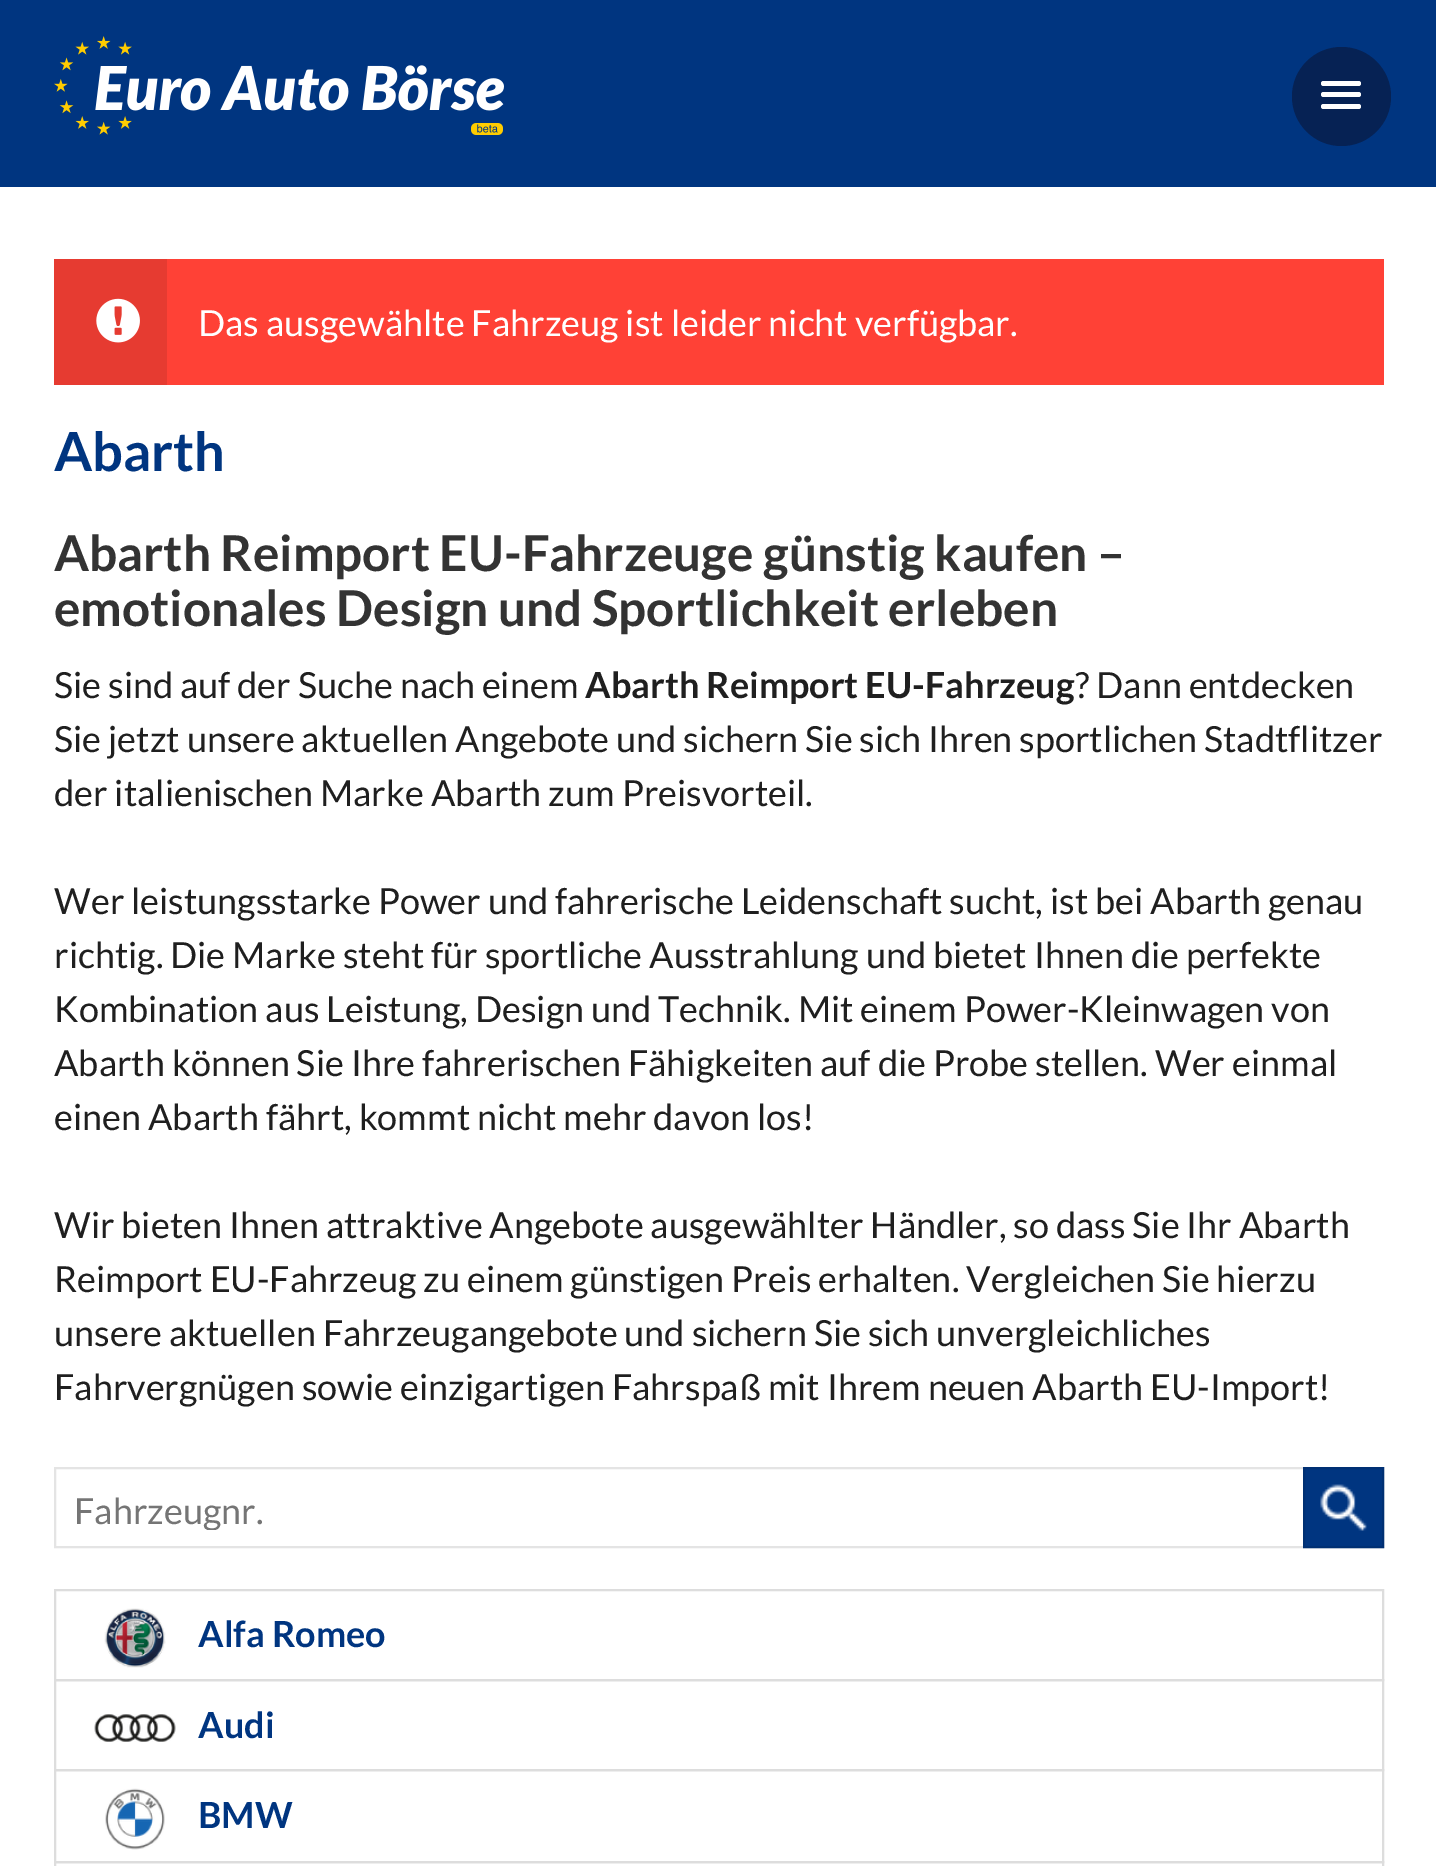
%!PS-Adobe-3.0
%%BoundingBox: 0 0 1436 1866
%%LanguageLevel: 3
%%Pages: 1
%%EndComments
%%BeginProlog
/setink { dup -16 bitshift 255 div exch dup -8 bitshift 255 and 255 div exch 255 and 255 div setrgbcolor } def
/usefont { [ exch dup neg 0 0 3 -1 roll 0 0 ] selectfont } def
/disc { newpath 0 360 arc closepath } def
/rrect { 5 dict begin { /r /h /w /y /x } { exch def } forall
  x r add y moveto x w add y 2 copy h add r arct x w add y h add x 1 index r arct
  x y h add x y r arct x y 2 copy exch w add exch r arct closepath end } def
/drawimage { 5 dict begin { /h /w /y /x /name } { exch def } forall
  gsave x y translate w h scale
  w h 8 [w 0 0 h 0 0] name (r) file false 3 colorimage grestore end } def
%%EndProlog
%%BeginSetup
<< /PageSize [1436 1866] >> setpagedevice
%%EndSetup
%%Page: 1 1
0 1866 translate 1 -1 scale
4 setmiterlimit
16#FFFFFF setink
0 0 1436 1866 rectfill
16#003580 setink
0 0 1436 187 rectfill
(img1.raw) 54 36 450 99 drawimage
16#062254 setink
1341.5 96.5 49.5 disc fill
16#FFFFFF setink
1321 81 40 5 2.5 rrect fill
1321 92 40 5 2.5 rrect fill
1321 104 40 5 2.5 rrect fill
16#FF4136 setink
167 259 1217 126 rectfill
16#E63B31 setink
54 259 113 126 rectfill
(img2.raw) 96 298 44 45 drawimage
/Lato-Regular 36 usefont
16#FFFFFF setink
198 336 moveto (Das ausgewählte Fahrzeug ist leider nicht verfügbar.) show
/Lato-Bold 54 usefont
16#003580 setink
54 471 moveto (Abarth) show
/Lato-Bold 49.5 usefont
16#333333 setink
54 571 moveto (Abarth Reimport EU-Fahrzeuge günstig kaufen –) show
54 626 moveto (emotionales Design und Sportlichkeit erleben) show
/Lato-Regular 36 usefont
16#1F1F1F setink
54 698 moveto (Sie sind auf der Suche nach einem) show
/Lato-Bold 36 usefont
585 698 moveto (Abarth Reimport EU-Fahrzeug) show
/Lato-Regular 36 usefont
[
    [(? Dann entdecken) 1075 698]
    [(Sie jetzt unsere aktuellen Angebote und sichern Sie sich Ihren sportlichen Stadtflitzer) 54 752]
    [(der italienischen Marke Abarth zum Preisvorteil.) 54 806]
    [(Wer leistungsstarke Power und fahrerische Leidenschaft sucht, ist bei Abarth genau) 54 914]
    [(richtig. Die Marke steht für sportliche Ausstrahlung und bietet Ihnen die perfekte) 54 968]
    [(Kombination aus Leistung, Design und Technik. Mit einem Power-Kleinwagen von) 54 1022]
    [(Abarth können Sie Ihre fahrerischen Fähigkeiten auf die Probe stellen. Wer einmal) 54 1076]
    [(einen Abarth fährt, kommt nicht mehr davon los!) 54 1130]
    [(Wir bieten Ihnen attraktive Angebote ausgewählter Händler, so dass Sie Ihr Abarth) 54 1238]
    [(Reimport EU-Fahrzeug zu einem günstigen Preis erhalten. Vergleichen Sie hierzu) 54 1292]
    [(unsere aktuellen Fahrzeugangebote und sichern Sie sich unvergleichliches) 54 1346]
    [(Fahrvergnügen sowie einzigartigen Fahrspaß mit Ihrem neuen Abarth EU-Import!) 54 1400]
] { aload pop moveto show } forall
16#E4E4E4 setink
2 setlinewidth
55 1468 1328 79 rectstroke
gsave
74 1487 1290 43 rectclip
16#757575 setink
74 1524 moveto (Fahrzeugnr.) show
grestore
16#003580 setink
1305 1469 77 77 rectfill
(img3.raw) 1320 1484 47 47 drawimage
16#003073 setink
1304 1468 79 79 rectstroke
16#DDDDDD setink
55 1590 1328 90 rectstroke
(img4.raw) 104 1608 62 60 drawimage
/Lato-Bold 36 usefont
16#003580 setink
198 1647 moveto (Alfa Romeo) show
16#DDDDDD setink
55 1680 1328 90 rectstroke
(img5.raw) 94 1714 82 28 drawimage
16#003580 setink
198 1738 moveto (Audi) show
16#DDDDDD setink
55 1770 1328 92 rectstroke
(img6.raw) 105 1788 60 62 drawimage
16#003580 setink
198 1828 moveto (BMW) show
16#DDDDDD setink
55 1862 1328 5 rectstroke
showpage
%%EOF
